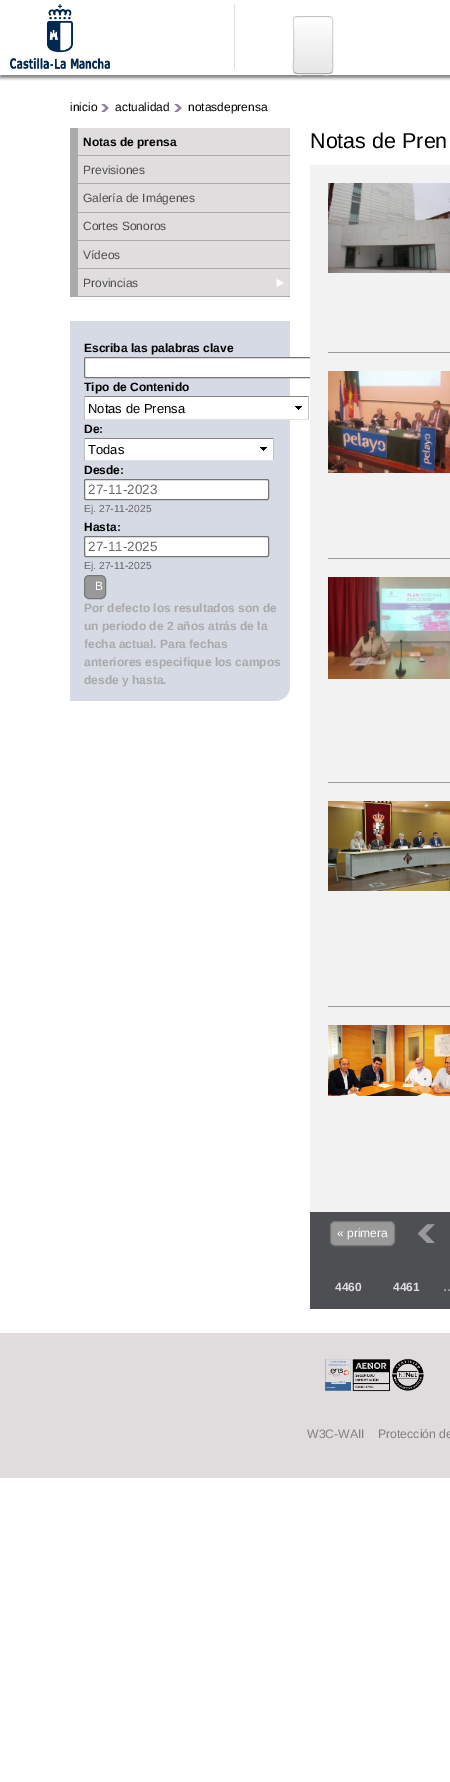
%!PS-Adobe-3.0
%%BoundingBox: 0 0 450 1782
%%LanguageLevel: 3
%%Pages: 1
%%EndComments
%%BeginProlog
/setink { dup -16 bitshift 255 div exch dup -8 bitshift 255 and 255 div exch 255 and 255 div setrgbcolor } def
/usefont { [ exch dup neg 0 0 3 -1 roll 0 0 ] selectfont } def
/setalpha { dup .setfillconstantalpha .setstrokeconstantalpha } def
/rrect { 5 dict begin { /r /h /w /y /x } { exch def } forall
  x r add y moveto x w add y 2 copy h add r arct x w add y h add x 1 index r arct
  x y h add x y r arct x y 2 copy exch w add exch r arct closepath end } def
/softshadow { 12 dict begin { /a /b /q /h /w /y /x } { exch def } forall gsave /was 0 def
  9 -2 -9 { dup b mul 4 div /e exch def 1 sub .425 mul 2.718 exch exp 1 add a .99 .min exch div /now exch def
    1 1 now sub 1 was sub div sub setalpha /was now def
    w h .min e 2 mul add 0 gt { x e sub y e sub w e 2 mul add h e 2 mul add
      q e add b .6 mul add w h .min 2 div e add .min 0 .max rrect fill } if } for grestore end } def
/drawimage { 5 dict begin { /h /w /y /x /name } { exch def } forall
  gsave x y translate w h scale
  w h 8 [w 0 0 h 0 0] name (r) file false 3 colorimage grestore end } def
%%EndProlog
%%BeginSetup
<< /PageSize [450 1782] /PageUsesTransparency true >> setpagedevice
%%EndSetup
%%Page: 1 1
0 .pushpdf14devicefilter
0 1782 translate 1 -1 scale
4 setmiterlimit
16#FFFFFF setink
0 0 450 1782 rectfill
gsave
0 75 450 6 rectclip
16#646464 setink
0 3 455 75 0 1.5 0.8 softshadow
grestore
16#DDDDDD setink
234 4 1 65 rectfill
(img1.raw) 10 4 100 65 drawimage
16#FFFFFF setink
293 70 moveto 293 76 298 75 302 75 curveto 324 75 lineto 328 75 333 76 333 70 curveto 333 72 331 74 329 74 curveto 297 74 lineto 295 74 293 72 293 70 curveto closepath fill
16#E8E8E8 setink
293 16 40 58 4 rrect fill
gsave
293 16 40 58 4 rrect clip newpath
gsave 293 17 moveto 333 17 lineto 333 73 lineto 293 73 lineto closepath clip newpath
<< /ShadingType 2 /ColorSpace /DeviceRGB /Coords [313 17 313 73] /Extend [true true] /Function << /FunctionType 2 /Domain [0 1] /C0 [1 1 1] /C1 [0.902 0.902 0.902] /N 1 >> >> shfill grestore
grestore
0.25 setalpha
16#000000 setink
331.5 72.5 moveto 331 73 330 73.5 329 73.5 curveto 297 73.5 lineto 296 73.5 295 73 294.5 72.5 curveto stroke
0.15 setalpha
294.5 72.5 moveto 292 70 293.5 62.5 293.5 61.5 curveto 293.5 28.5 lineto 293.5 17 291.5 16.5 302.5 16.5 curveto 323.5 16.5 lineto 334.5 16.5 332.5 17 332.5 28.5 curveto 332.5 61.5 lineto 332.5 62.5 334 70 331.5 72.5 curveto stroke
/LiberationSans-Regular 12 usefont
1 setalpha
70 111 moveto (inicio) show
(img2.raw) 101 104 8 8 drawimage
115 111 moveto (actualidad) show
(img2.raw) 174 104 8 8 drawimage
188 111 moveto (notasdeprensa) show
[
    [78 128 212 27 16#E0DDDE]
    [70 155 220 1 16#AAAAAA]
    [70 128 8 28 16#AAAAAA]
] { aload pop setink rectfill } forall
/LiberationSans-Bold 12 usefont
16#000000 setink
83 146 moveto (Notas de prensa) show
[
    [78 156 212 27 16#E0DDDE]
    [70 183 220 1 16#AAAAAA]
    [70 156 8 28 16#AAAAAA]
] { aload pop setink rectfill } forall
/LiberationSans-Regular 12 usefont
16#4D4D4D setink
83 174 moveto (Previsiones) show
[
    [78 184 212 28 16#E0DDDE]
    [70 212 220 1 16#AAAAAA]
    [70 184 8 29 16#AAAAAA]
] { aload pop setink rectfill } forall
16#4D4D4D setink
83 202 moveto (Galería de Imágenes) show
[
    [78 213 212 27 16#E0DDDE]
    [70 240 220 1 16#AAAAAA]
    [70 213 8 28 16#AAAAAA]
] { aload pop setink rectfill } forall
16#4D4D4D setink
83 230 moveto (Cortes Sonoros) show
[
    [78 241 212 27 16#E0DDDE]
    [70 268 220 1 16#AAAAAA]
    [70 241 8 28 16#AAAAAA]
] { aload pop setink rectfill } forall
16#4D4D4D setink
83 259 moveto (Vídeos) show
16#E0DDDE setink
78 269 212 27 rectfill
(img3.raw) 276 279 8 8 drawimage
16#AAAAAA setink
70 296 220 1 rectfill
70 269 8 28 rectfill
16#4D4D4D setink
83 287 moveto (Provincias) show
16#D6DAE5 setink
70 321 moveto 290 321 lineto 290 686 lineto 290 694.5 283.5 701 275 701 curveto 70 701 lineto closepath fill
/LiberationSans-Bold 12 usefont
16#000000 setink
84 352 moveto (Escriba las palabras clave) show
16#FFFFFF setink
84.5 357.5 264 20 1.5 rrect gsave fill grestore
16#767676 setink
stroke
16#000000 setink
84 391 moveto (Tipo de Contenido) show
16#FFFFFF setink
85 397 205 22 rectfill
(img4.raw) 295 406 7 4 drawimage
[
    [84 396 225 1 16#848484]
    [308 396 1 24 16#C1C1C1]
    [84 419 225 1 16#E1E1E1]
    [84 396 1 24 16#C1C1C1]
] { aload pop setink rectfill } forall
/LiberationSans-Regular 13 usefont
16#000000 setink
88 413 moveto (Notas de Prensa) show
/LiberationSans-Bold 12 usefont
84 433 moveto (De:) show
16#FFFFFF setink
85 439 188 21 rectfill
(img4.raw) 260 447 7 4 drawimage
[
    [84 438 190 1 16#848484]
    [273 438 1 23 16#C1C1C1]
    [84 460 190 1 16#E1E1E1]
    [84 438 1 23 16#C1C1C1]
] { aload pop setink rectfill } forall
/LiberationSans-Regular 13 usefont
16#000000 setink
88 454 moveto (Todas) show
/LiberationSans-Bold 12 usefont
84 474 moveto (Desde:) show
16#FFFFFF setink
84.5 479.5 184 20 1.5 rrect gsave fill grestore
16#767676 setink
stroke
/LiberationSans-Regular 13.5 usefont
16#666666 setink
88 494 moveto (27-11-2023) show
/LiberationSans-Regular 10.25 usefont
84 512 moveto (Ej. 27-11-2025) show
/LiberationSans-Bold 12 usefont
16#000000 setink
84 531 moveto (Hasta:) show
16#FFFFFF setink
84.5 536.5 184 20 1.5 rrect gsave fill grestore
16#767676 setink
stroke
/LiberationSans-Regular 13.5 usefont
16#666666 setink
88 551 moveto (27-11-2025) show
/LiberationSans-Regular 10.25 usefont
84 569 moveto (Ej. 27-11-2025) show
16#999999 setink
84.5 575.5 21 23 4.5 rrect gsave fill grestore
16#777777 setink
stroke
/LiberationSans-Regular 12 usefont
16#FFFFFF setink
95 590 moveto (B) show
/LiberationSans-Bold 12 usefont
16#A9A9A9 setink
[
    [(Por defecto los resultados son de) 84 612]
    [(un periodo de 2 años atrás de la) 84 630]
    [(fecha actual. Para fechas) 84 648]
    [(anteriores especifique los campos) 84 666]
    [(desde y hasta.) 84 684]
] { aload pop moveto show } forall
/LiberationSans-Regular 21.5 usefont
16#000000 setink
310 148 moveto (Notas de Pren) show
16#F2F2F2 setink
310 165 140 1047 rectfill
(img5.raw) 328 183 122 90 drawimage
16#999999 setink
328 352 122 1 rectfill
(img6.raw) 328 371 122 102 drawimage
328 558 122 1 rectfill
(img7.raw) 328 577 122 102 drawimage
328 782 122 1 rectfill
(img8.raw) 328 801 122 90 drawimage
328 1006 122 1 rectfill
(img9.raw) 328 1025 122 71 drawimage
16#4D4F53 setink
310 1212 140 97 rectfill
16#999999 setink
330.5 1221.5 64 24 4.5 rrect gsave fill grestore
16#777777 setink
stroke
/LiberationSans-Regular 12 usefont
16#FFFFFF setink
337 1237 moveto (« primera) show
(img10.raw) 417 1224 18 19 drawimage
/LiberationSans-Bold 12 usefont
16#E0DCDD setink
335 1291 moveto (4460) show
393 1291 moveto (4461) show
16#B3B3B3 setink
443 1291 moveto (…) show
16#E0DCDD setink
0 1333 450 145 rectfill
(img11.raw) 325 1358 99 34 drawimage
/LiberationSans-Regular 12.25 usefont
16#808080 setink
307 1438 moveto (W3C-WAII) show
378 1438 moveto (Protección de) show
.poppdf14devicefilter showpage
%%EOF
